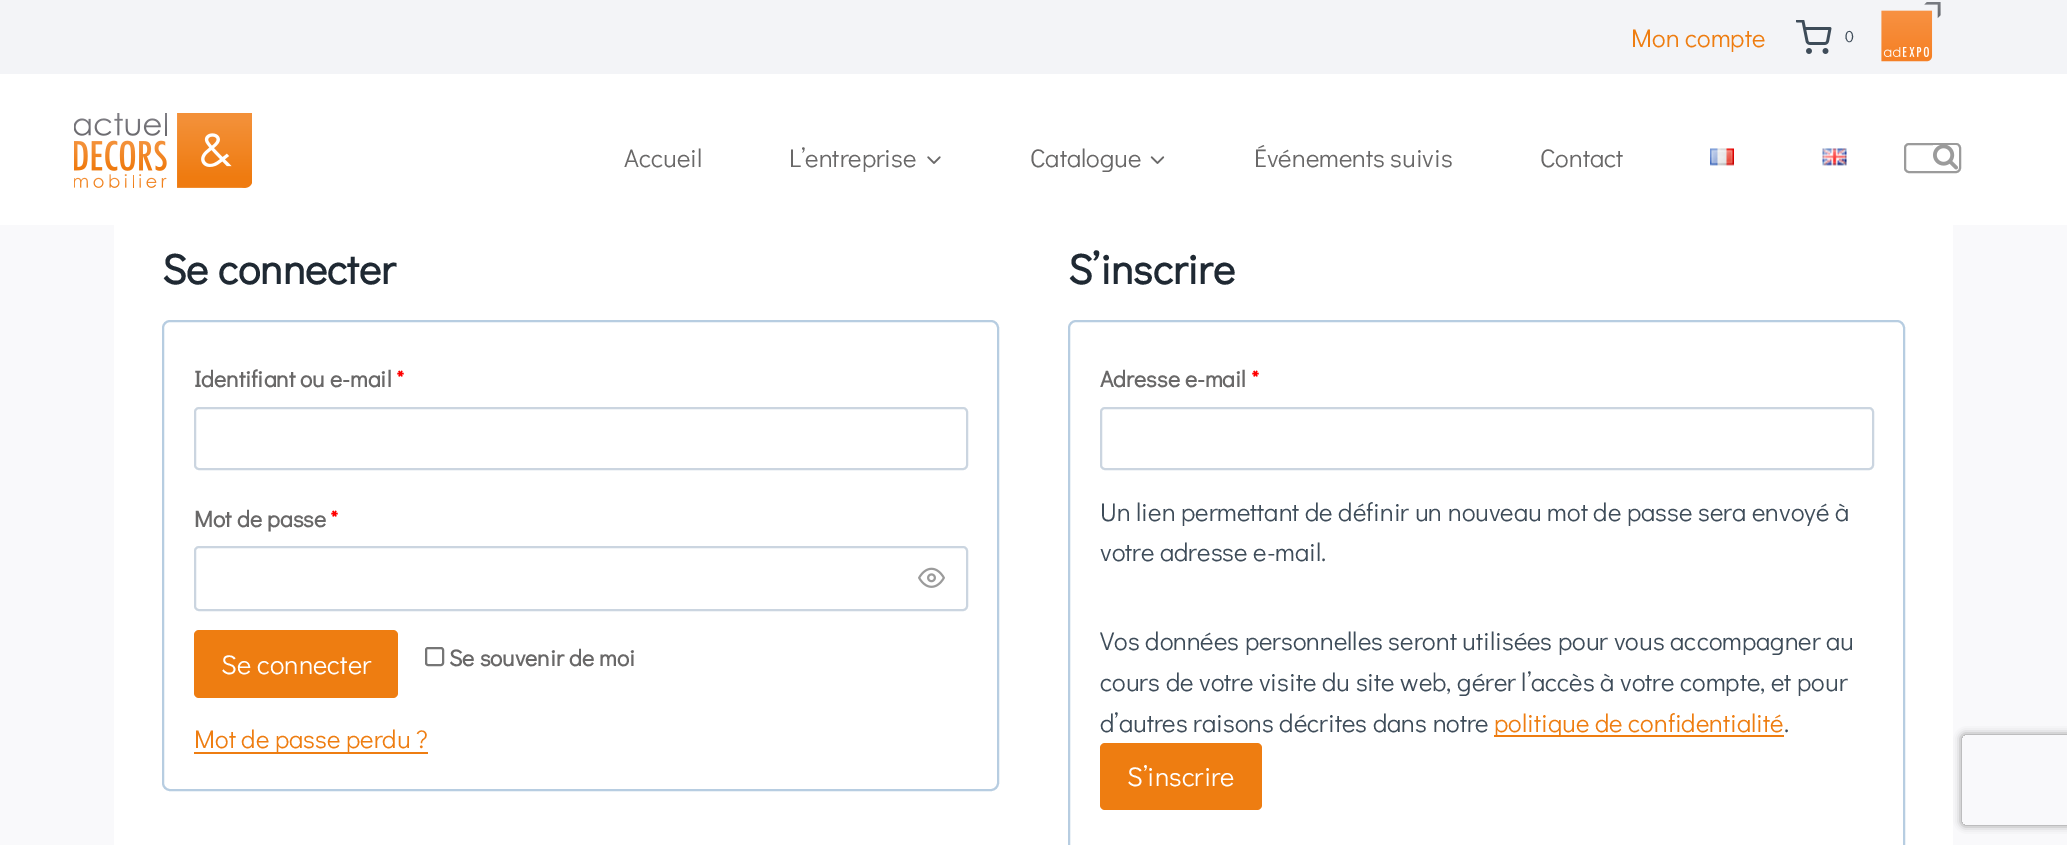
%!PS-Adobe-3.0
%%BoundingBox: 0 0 2067 845
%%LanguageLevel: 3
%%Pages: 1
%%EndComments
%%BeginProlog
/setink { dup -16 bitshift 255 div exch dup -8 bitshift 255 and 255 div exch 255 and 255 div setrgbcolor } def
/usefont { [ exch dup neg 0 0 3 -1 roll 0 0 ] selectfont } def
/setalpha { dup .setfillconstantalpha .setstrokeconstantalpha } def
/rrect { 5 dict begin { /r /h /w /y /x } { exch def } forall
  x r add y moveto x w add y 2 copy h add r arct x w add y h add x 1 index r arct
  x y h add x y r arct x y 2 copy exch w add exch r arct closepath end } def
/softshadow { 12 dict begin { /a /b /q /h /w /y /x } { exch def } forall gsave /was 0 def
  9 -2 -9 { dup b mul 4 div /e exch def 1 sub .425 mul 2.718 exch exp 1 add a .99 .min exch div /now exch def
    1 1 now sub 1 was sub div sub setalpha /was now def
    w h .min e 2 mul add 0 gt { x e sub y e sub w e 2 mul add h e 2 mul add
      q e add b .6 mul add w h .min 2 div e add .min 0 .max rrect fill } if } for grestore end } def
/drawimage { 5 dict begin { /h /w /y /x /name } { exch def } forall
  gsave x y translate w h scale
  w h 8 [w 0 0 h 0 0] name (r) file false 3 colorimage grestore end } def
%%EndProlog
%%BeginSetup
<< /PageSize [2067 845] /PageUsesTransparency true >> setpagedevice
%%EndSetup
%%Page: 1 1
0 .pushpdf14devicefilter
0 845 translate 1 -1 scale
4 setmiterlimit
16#F9F9FB setink
0 0 2067 845 rectfill
16#FFFFFF setink
0 74 2067 151 rectfill
16#F3F4F7 setink
0 0 2067 74 rectfill
/DidactGothic-Regular 25.5 usefont
16#EE7D11 setink
1631 47 moveto (Mon compte) show
(img1.raw) 1796 20 36 34 drawimage
/DidactGothic-Regular 16 usefont
16#3E4C59 setink
1845 42 moveto (0) show
(img2.raw) 1881 2 60 60 drawimage
(img3.raw) 74 113 178 75 drawimage
/DidactGothic-Regular 25.5 usefont
16#696868 setink
624 167 moveto (Accueil) show
789 167 moveto (L’entreprise) show
(img4.raw) 927 156 14 8 drawimage
1030 167 moveto (Catalogue) show
(img5.raw) 1150 156 15 8 drawimage
1254 167 moveto (Événements suivis) show
1540 167 moveto (Contact) show
(img6.raw) 1710 148 24 18 drawimage
(img7.raw) 1822 148 25 18 drawimage
16#9B9B9B setink
2 setlinewidth
1905 144 55 28 4 rrect stroke
(img8.raw) 1933 145 25 25 drawimage
16#FFFFFF setink
114 225 1839 620 rectfill
/DidactGothic-Bold 42 usefont
16#1F2933 setink
162 284 moveto (Se connecter) show
16#B7CDE1 setink
163 321 835 469 7 rrect stroke
/DidactGothic-Bold 23 usefont
16#696868 setink
194 387 moveto (Identifiant ou e-mail) show
16#FF0000 setink
396 387 moveto (*) show
16#CBD5E0 setink
195 408 772 61 4 rrect stroke
16#696868 setink
194 527 moveto (Mot de passe) show
16#FF0000 setink
330 527 moveto (*) show
16#CBD5E0 setink
195 547 772 63 4 rrect stroke
(img9.raw) 918 567 27 21 drawimage
16#EE7D11 setink
194 630 204 68 5 rrect fill
/DidactGothic-Regular 27 usefont
16#FFFFFF setink
221 674 moveto (Se connecter) show
16#767676 setink
426 648 17 17 2 rrect stroke
/DidactGothic-Bold 23 usefont
16#696868 setink
449 666 moveto (Se souvenir de moi) show
16#EE7D11 setink
194 752 234 2 rectfill
/DidactGothic-Regular 25.5 usefont
194 748 moveto (Mot de passe perdu ?) show
/DidactGothic-Bold 42 usefont
16#1F2933 setink
1068 284 moveto (S’inscrire) show
16#B7CDE1 setink
1069 321 835 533 7 rrect stroke
/DidactGothic-Bold 23 usefont
16#696868 setink
1100 387 moveto (Adresse e-mail) show
16#FF0000 setink
1251 387 moveto (*) show
16#CBD5E0 setink
1101 408 772 61 4 rrect stroke
/DidactGothic-Regular 25.5 usefont
16#3E4C59 setink
[
    [(Un lien permettant de définir un nouveau mot de passe sera envoyé à) 1100 521]
    [(votre adresse e-mail.) 1100 561]
    [(Vos données personnelles seront utilisées pour vous accompagner au) 1100 650]
    [(cours de votre visite du site web, gérer l’accès à votre compte, et pour) 1100 691]
    [(d’autres raisons décrites dans notre) 1100 732]
] { aload pop moveto show } forall
16#EE7D11 setink
1494 735 290 2 rectfill
1494 732 moveto (politique de confidentialité) show
16#3E4C59 setink
1784 732 moveto (.) show
16#EE7D11 setink
1100 743 162 67 5 rrect fill
/DidactGothic-Regular 27 usefont
16#FFFFFF setink
1127 786 moveto (S’inscrire) show
gsave
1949 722 moveto 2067 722 lineto 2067 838 lineto 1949 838 lineto closepath 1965 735 moveto 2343 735 lineto 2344.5 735 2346 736.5 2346 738 curveto 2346 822 lineto 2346 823.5 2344.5 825 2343 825 curveto 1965 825 lineto 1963.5 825 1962 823.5 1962 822 curveto 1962 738 lineto 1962 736.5 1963.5 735 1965 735 curveto closepath eoclip newpath
16#808080 setink
1962 735 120 90 3 4 1 softshadow
grestore
.poppdf14devicefilter showpage
%%EOF
